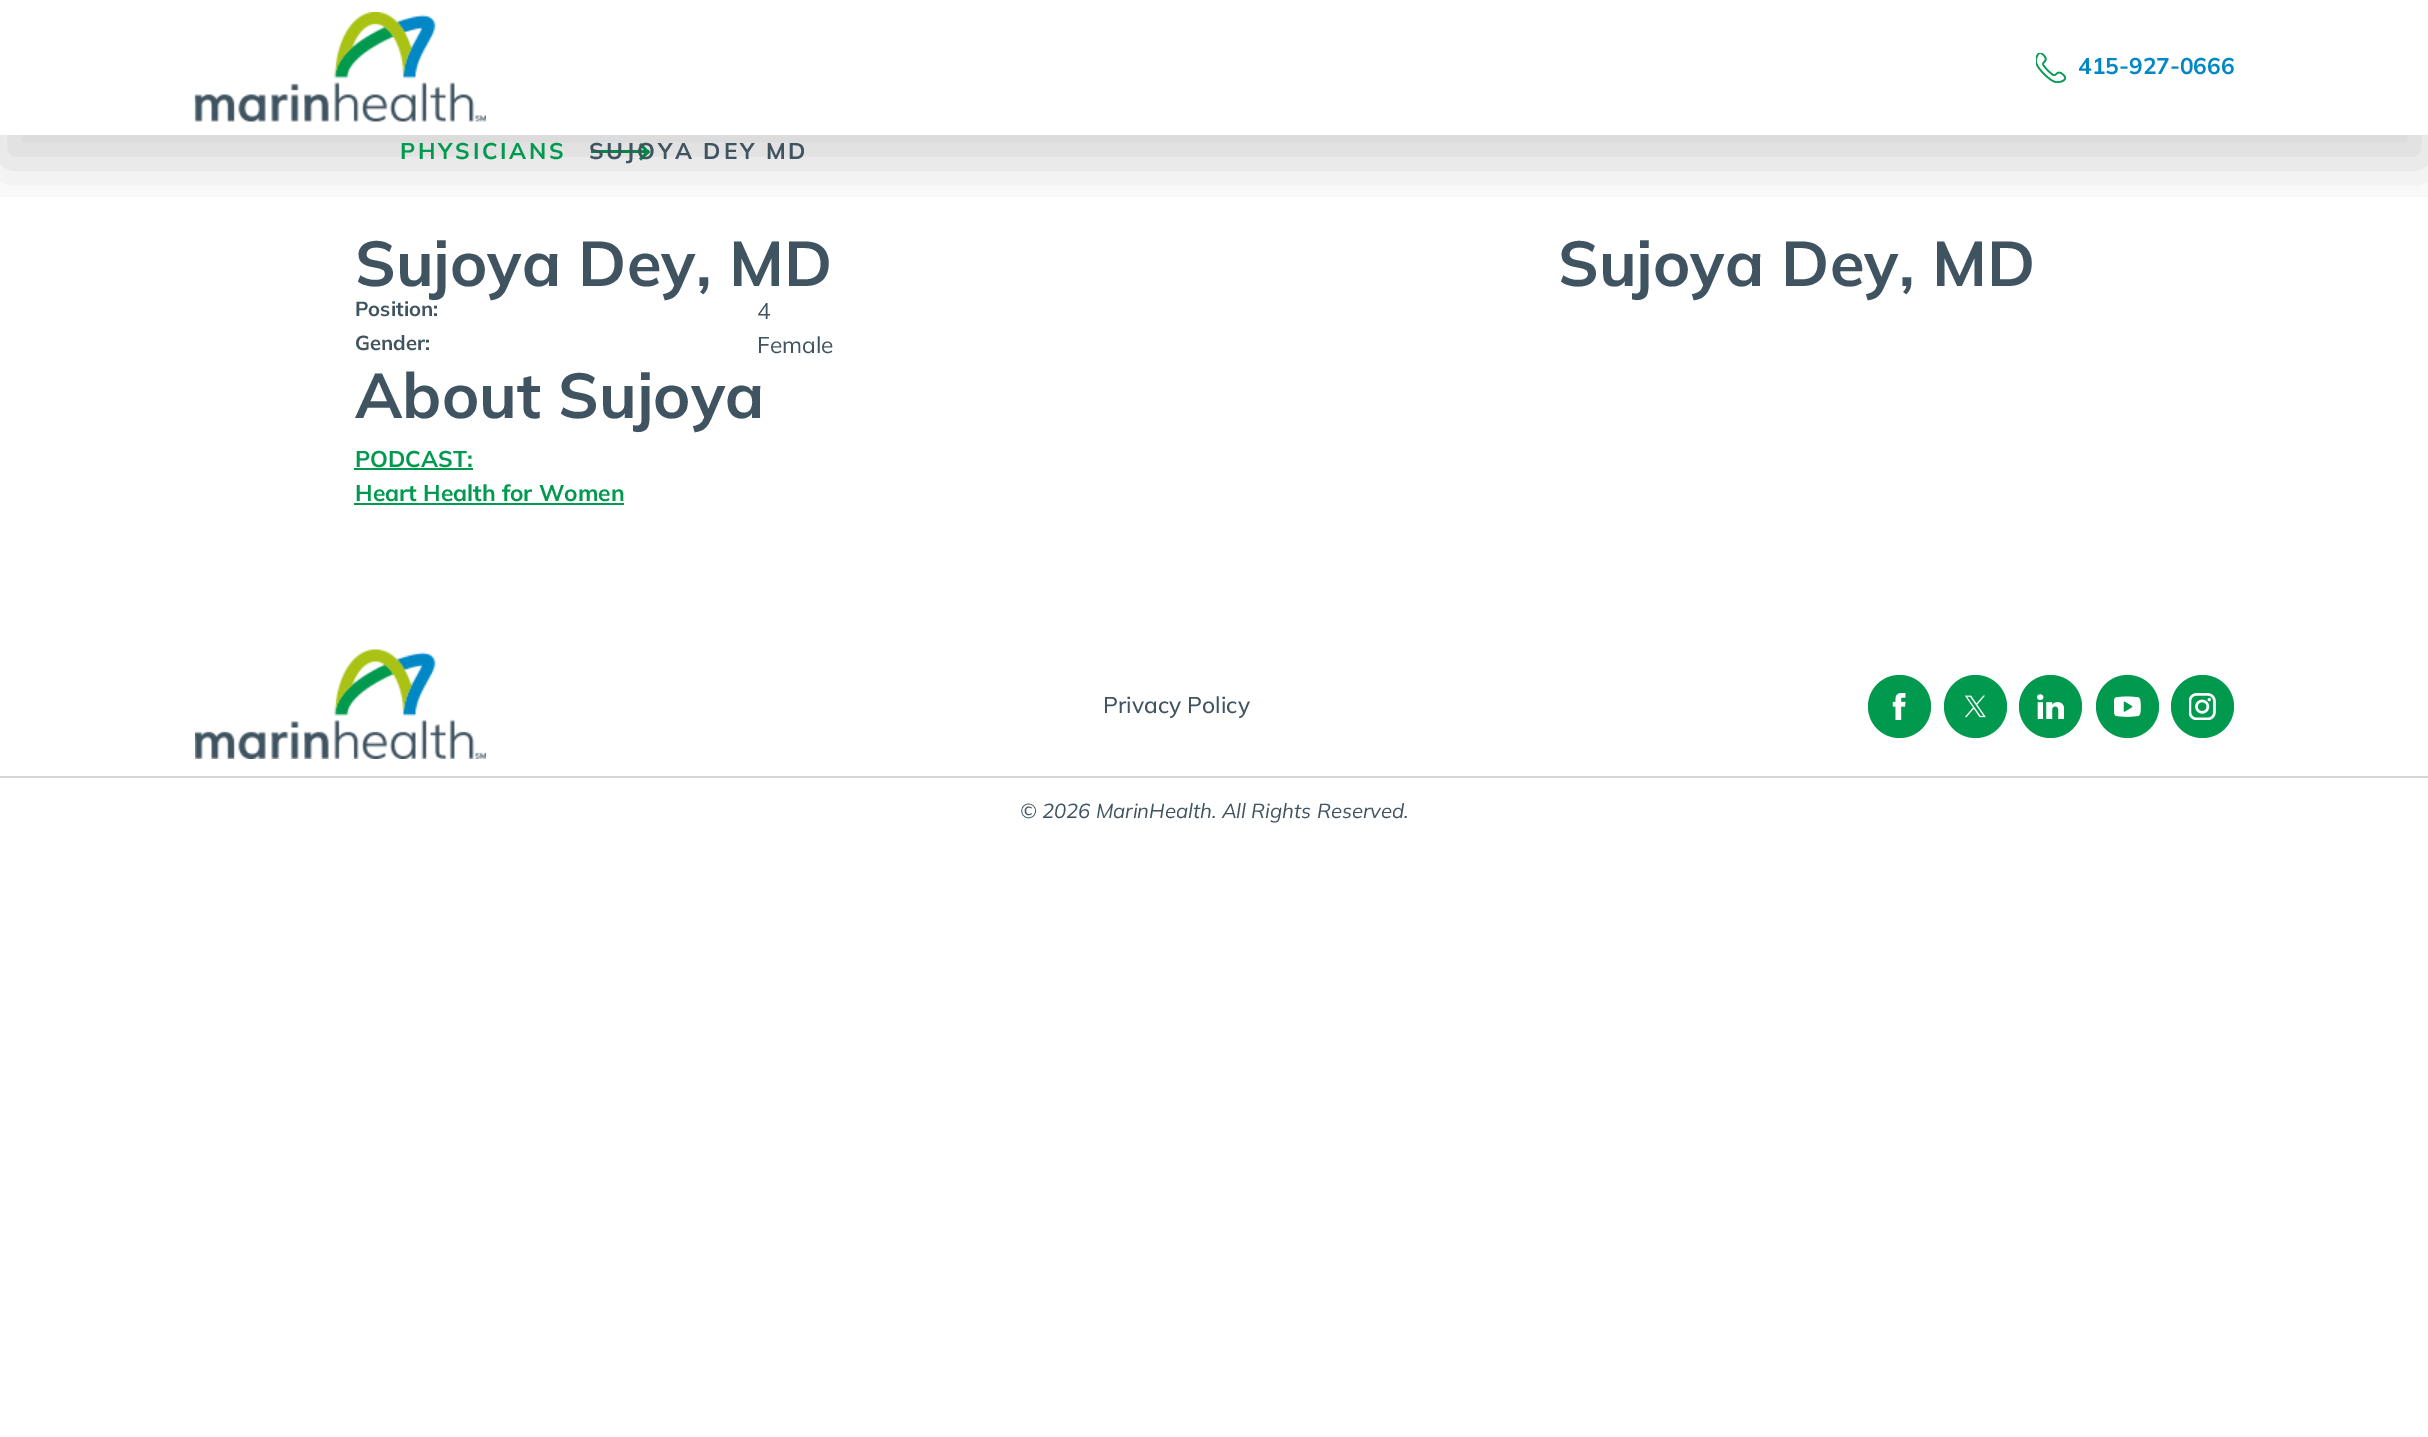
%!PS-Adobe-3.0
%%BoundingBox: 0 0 2428 1437
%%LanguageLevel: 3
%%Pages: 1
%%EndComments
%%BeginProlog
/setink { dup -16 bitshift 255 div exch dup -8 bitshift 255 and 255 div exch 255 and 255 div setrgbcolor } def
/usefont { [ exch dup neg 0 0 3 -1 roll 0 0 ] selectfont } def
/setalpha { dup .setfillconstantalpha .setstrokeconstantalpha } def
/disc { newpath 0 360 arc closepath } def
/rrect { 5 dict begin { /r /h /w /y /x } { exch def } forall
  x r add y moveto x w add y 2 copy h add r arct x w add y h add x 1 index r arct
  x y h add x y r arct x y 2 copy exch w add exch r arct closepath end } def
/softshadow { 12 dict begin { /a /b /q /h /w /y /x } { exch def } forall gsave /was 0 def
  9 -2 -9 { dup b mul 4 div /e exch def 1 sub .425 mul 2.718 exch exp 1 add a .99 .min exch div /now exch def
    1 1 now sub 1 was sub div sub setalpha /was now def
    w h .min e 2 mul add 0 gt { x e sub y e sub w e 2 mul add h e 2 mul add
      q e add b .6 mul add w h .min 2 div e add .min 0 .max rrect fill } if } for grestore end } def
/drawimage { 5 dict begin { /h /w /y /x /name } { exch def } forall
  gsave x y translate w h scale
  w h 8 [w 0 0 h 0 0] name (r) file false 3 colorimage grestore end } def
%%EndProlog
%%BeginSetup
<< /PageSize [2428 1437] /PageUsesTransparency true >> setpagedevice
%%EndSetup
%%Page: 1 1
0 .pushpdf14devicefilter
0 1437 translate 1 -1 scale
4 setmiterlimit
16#FFFFFF setink
0 0 2428 1437 rectfill
16#00994E setink
591 150 57 3 rectfill
639 145 moveto 641 143 lineto 650 152 lineto 648 154 lineto closepath fill
639 158.5 moveto 648 149.5 lineto 650 152 lineto 641 160.5 lineto closepath fill
gsave
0 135 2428 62 rectclip
16#000000 setink
0 29 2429 135 0 29 0.16 softshadow
grestore
(img1.raw) 194 12 292 110 drawimage
(img2.raw) 2036 53 30 30 drawimage
/Mulish-ExtraLight 22.75 usefont
16#0087C6 setink
2078 74 moveto (415-927-0666) show
16#00994E setink
400 159 moveto 2.75 0 (PHYSICIANS) ashow
16#3F5360 setink
589 159 moveto 2.75 0 (SUJOYA DEY MD) ashow
/Mulish-ExtraLight 63.25 usefont
355 286 moveto (Sujoya Dey, MD) show
/Mulish-ExtraLight 20.25 usefont
355 316 moveto (Position:) show
/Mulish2-ExtraLight 22.75 usefont
757 319 moveto (4) show
/Mulish-ExtraLight 20.25 usefont
355 350 moveto (Gender:) show
/Mulish2-ExtraLight 22.75 usefont
757 353 moveto (Female) show
/Mulish-ExtraLight 63.25 usefont
355 418 moveto (About Sujoya) show
/Mulish-ExtraLight 22.75 usefont
16#00994E setink
355 467 moveto (PODCAST:) show
354 468 119 2 rectfill
355 501 moveto (Heart Health for Women) show
354 503 270 2 rectfill
/Mulish-ExtraLight 63.25 usefont
16#3F5360 setink
1558 286 moveto (Sujoya Dey, MD) show
(img3.raw) 195 649 291 110 drawimage
/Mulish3-ExtraLight 22.75 usefont
1103 713 moveto (Privacy Policy) show
16#00994E setink
1899.5 706.5 31.5 disc fill
(img4.raw) 1892 693 14 27 drawimage
1975.5 706.5 31.5 disc fill
(img5.raw) 1964 695 22 23 drawimage
2050.5 706.5 31.5 disc fill
(img6.raw) 2037 694 27 25 drawimage
2127.5 706.5 31.5 disc fill
(img7.raw) 2114 696 27 21 drawimage
2202.5 706.5 31.5 disc fill
(img8.raw) 2189 693 27 27 drawimage
16#D6D6D6 setink
0 776 2428 2 rectfill
/Mulish-ExtraLightItalic 20.25 usefont
16#3F5360 setink
1020 818 moveto (© 2026 MarinHealth. All Rights Reserved.) show
.poppdf14devicefilter showpage
%%EOF
